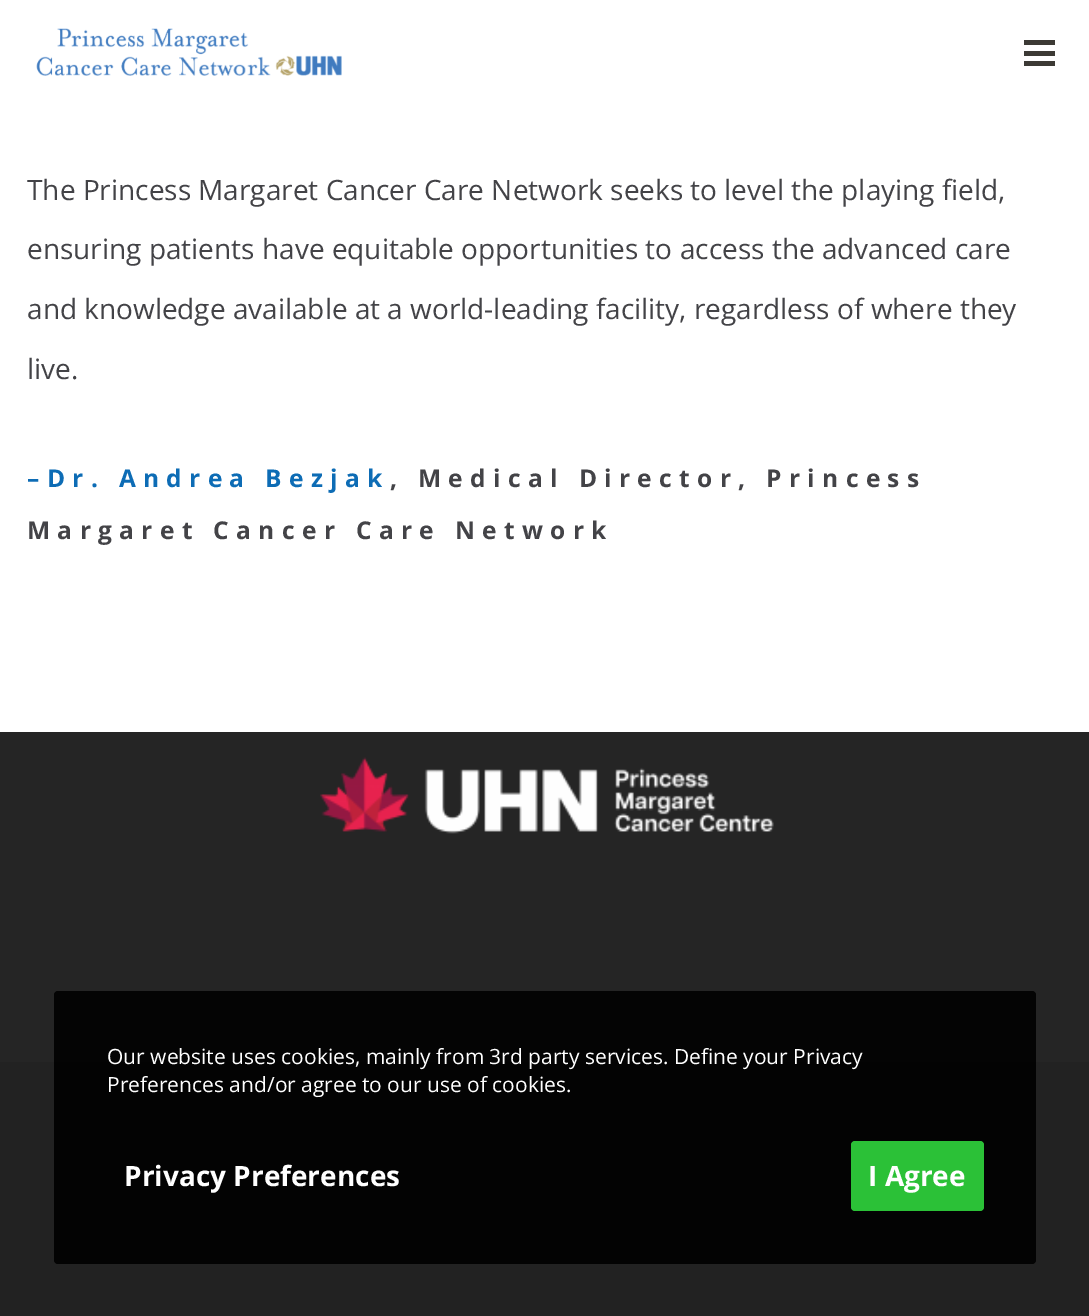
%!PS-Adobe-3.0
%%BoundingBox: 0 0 1089 1316
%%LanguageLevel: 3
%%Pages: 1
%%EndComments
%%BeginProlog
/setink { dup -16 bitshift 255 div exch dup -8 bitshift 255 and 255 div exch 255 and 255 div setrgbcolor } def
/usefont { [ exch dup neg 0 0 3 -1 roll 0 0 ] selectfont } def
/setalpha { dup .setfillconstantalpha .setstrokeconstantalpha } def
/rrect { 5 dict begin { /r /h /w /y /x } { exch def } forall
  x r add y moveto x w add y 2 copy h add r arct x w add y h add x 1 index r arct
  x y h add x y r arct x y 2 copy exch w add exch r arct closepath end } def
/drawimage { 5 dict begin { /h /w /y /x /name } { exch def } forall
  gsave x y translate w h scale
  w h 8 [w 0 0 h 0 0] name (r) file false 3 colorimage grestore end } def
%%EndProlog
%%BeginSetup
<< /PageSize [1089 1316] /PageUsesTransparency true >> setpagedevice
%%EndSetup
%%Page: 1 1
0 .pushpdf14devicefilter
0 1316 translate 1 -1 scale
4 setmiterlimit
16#252525 setink
0 0 1089 1316 rectfill
16#FFFFFF setink
0 0 1089 732 rectfill
(img1.raw) 36 28 306 48 drawimage
[
    [1024 40 31 5 16#3C3A35]
    [1024 51 31 5 16#3C3A35]
    [1024 61 31 5 16#3C3A35]
] { aload pop setink rectfill } forall
/OpenSans-Regular 28 usefont
16#434347 setink
[
    [(The Princess Margaret Cancer Care Network seeks to level the playing field,) 27 200]
    [(ensuring patients have equitable opportunities to access the advanced care) 27 259]
    [(and knowledge available at a world-leading facility, regardless of where they) 27 319]
    [(live.) 27 379]
] { aload pop moveto show } forall
/OpenSans-Bold 24.5 usefont
16#0D6CB5 setink
27 487 moveto 7.35 0 (–Dr. Andrea Bezjak) ashow
16#434347 setink
390 487 moveto 7.35 0 (, Medical Director, Princess) ashow
27 539 moveto 7.35 0 (Margaret Cancer Care Network) ashow
(img2.raw) 320 757 454 77 drawimage
16#222222 setink
0 1062 1089 254 rectfill
0.9 setalpha
16#000000 setink
54 991 982 273 4 rrect fill
/OpenSans-Regular 21 usefont
1 setalpha
16#FFFFFF setink
107 1064 moveto (Our website uses cookies, mainly from 3rd party services. Define your Privacy) show
107 1092 moveto (Preferences and/or agree to our use of cookies.) show
/OpenSans-Bold 28 usefont
124 1186 moveto (Privacy Preferences) show
16#2BC137 setink
851 1141 133 70 4 rrect fill
16#FFFFFF setink
868 1186 moveto (I Agree) show
.poppdf14devicefilter showpage
%%EOF
